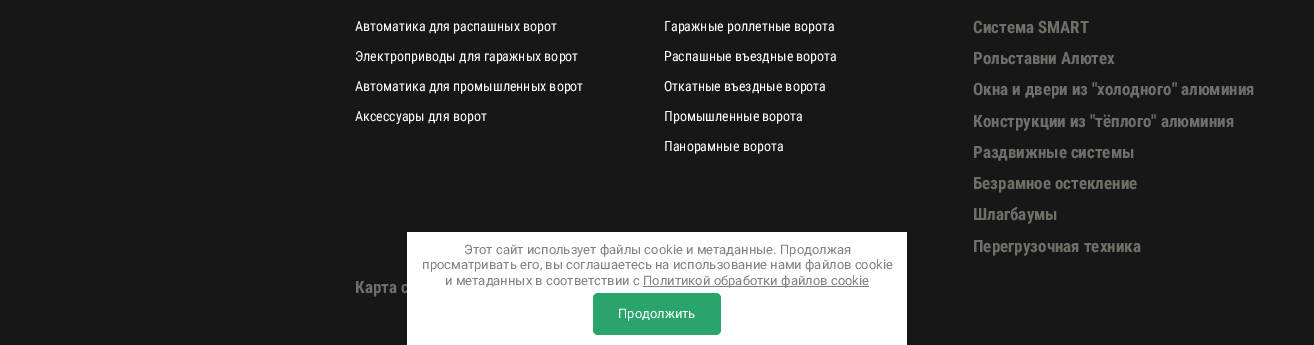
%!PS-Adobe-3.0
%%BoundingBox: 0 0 1314 345
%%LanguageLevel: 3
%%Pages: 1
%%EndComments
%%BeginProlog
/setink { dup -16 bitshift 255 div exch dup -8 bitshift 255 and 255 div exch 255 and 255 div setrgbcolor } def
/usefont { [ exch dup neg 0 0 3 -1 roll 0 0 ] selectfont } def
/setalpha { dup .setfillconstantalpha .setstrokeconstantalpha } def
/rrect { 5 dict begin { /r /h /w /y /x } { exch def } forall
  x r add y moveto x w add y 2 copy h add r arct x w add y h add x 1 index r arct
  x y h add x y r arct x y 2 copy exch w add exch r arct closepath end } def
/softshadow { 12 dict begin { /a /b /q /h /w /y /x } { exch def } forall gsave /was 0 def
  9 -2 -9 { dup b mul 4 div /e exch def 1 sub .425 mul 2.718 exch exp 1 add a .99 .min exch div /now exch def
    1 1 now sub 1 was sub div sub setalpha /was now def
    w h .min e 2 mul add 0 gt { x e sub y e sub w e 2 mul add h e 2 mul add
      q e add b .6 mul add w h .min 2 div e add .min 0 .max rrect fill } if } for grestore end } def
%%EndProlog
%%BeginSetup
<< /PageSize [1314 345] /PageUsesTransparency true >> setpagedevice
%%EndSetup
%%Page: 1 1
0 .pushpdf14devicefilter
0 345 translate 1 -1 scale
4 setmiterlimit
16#181717 setink
0 0 1314 345 rectfill
/RobotoCondensed-Regular 14 usefont
16#FFFFFF setink
[
    [(Автоматика для распашных ворот) 355 31]
    [(Электроприводы для гаражных ворот) 355 61]
    [(Автоматика для промышленных ворот) 355 91]
    [(Аксессуары для ворот) 355 121]
    [(Гаражные роллетные ворота) 664 31]
    [(Распашные въездные ворота) 664 61]
    [(Откатные въездные ворота) 664 91]
    [(Промышленные ворота) 664 121]
    [(Панорамные ворота) 664 151]
] { aload pop moveto show } forall
/RobotoCondensed-Bold 17 usefont
16#706E69 setink
[
    [(Система SMART) 973 33]
    [(Рольставни Алютех) 973 64]
    [(Окна и двери из "холодного" алюминия) 973 95]
    [(Конструкции из "тёплого" алюминия) 973 127]
    [(Раздвижные системы) 973 158]
    [(Безрамное остекление) 973 189]
    [(Шлагбаумы) 973 220]
    [(Перегрузочная техника) 973 252]
    [(Карта с) 355 293]
] { aload pop moveto show } forall
16#000000 setink
407 233 500 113 0 5 0.23 softshadow
16#FFFFFF setink
407 232 500 113 rectfill
/Roboto-Regular 13 usefont
16#808080 setink
[
    [(Этот сайт использует файлы cookie и метаданные. Продолжая) 464 254]
    [(просматривать его, вы соглашаетесь на использование нами файлов cookie) 422 269]
    [(и метаданных в соответствии с) 445 285]
] { aload pop moveto show } forall
643 286 226 1 rectfill
643 285 moveto (Политикой обработки файлов cookie) show
16#29A56C setink
593 293 128 42 5 rrect fill
16#FFFFFF setink
618 318 moveto (Продолжить) show
.poppdf14devicefilter showpage
%%EOF
